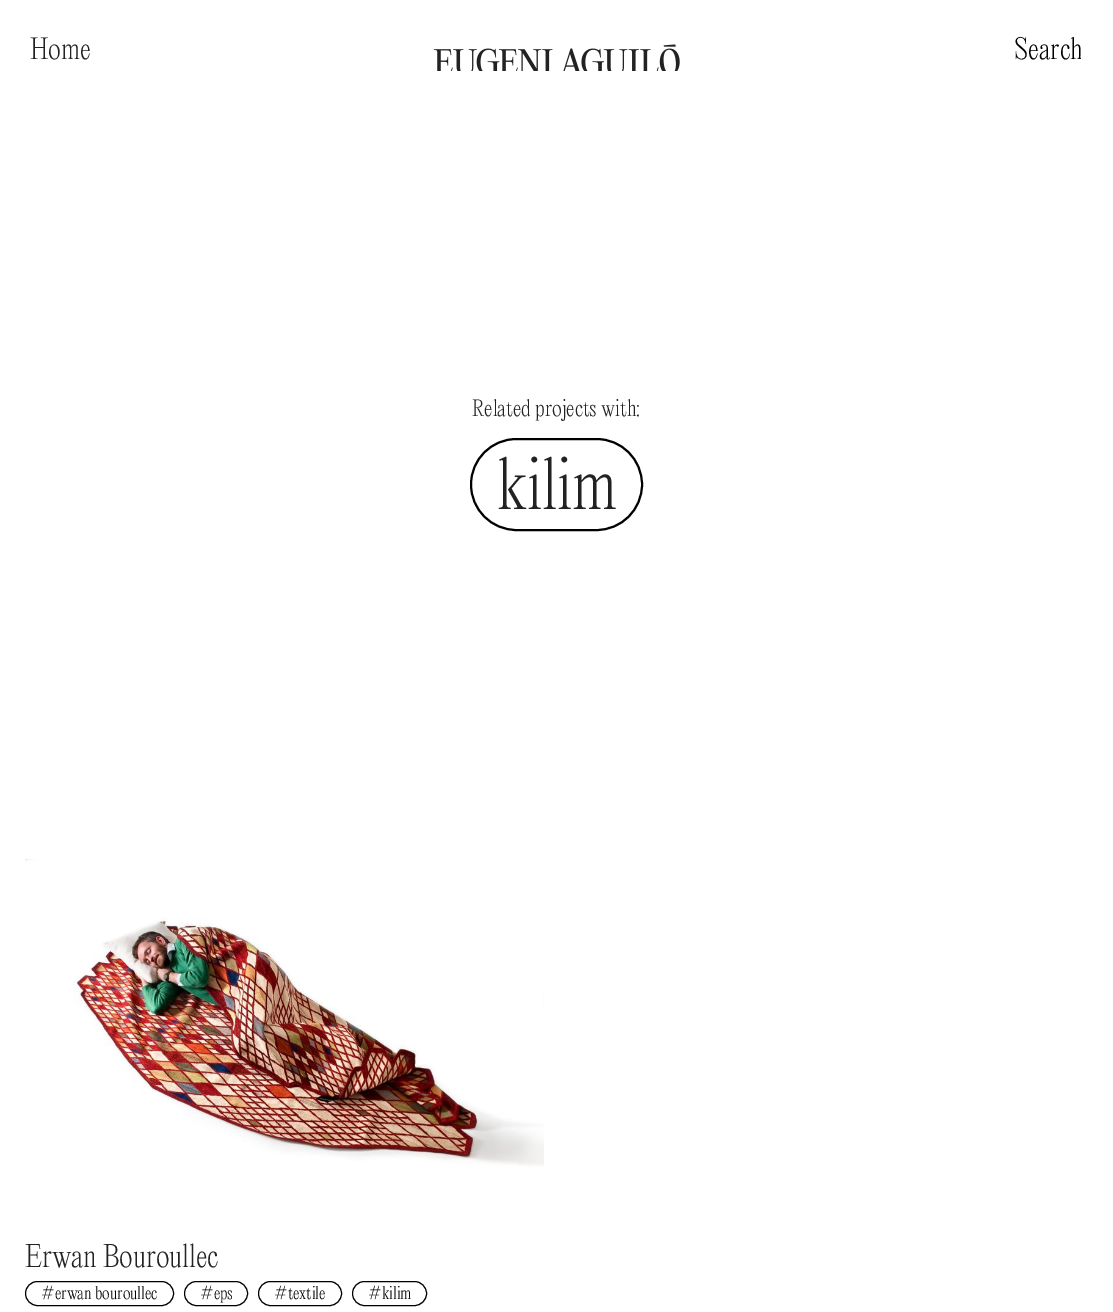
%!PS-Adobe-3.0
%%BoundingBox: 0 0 1113 1312
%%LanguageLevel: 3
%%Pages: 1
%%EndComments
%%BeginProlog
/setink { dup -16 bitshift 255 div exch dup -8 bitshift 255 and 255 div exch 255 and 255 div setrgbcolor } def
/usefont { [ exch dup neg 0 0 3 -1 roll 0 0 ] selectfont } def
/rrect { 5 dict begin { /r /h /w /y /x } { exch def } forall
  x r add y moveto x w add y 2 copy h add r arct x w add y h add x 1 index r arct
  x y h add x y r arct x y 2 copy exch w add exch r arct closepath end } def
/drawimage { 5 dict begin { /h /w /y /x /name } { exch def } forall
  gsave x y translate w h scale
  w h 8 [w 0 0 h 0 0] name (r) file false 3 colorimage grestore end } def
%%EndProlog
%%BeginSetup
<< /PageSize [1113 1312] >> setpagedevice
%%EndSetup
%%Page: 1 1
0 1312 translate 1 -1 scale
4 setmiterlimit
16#FFFFFF setink
0 0 1113 1312 rectfill
/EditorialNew-ExtraLight 27 usefont
16#222222 setink
30 59 moveto (Home) show
gsave
1014 32 67 33 rectclip
16#000000 setink
1014 59 moveto (Search) show
grestore
/EditorialNew-ExtraLight 20.75 usefont
472 416 moveto (Related projects with:) show
16#000000 setink
2 setlinewidth
471 439 171 91 45.5 rrect stroke
/EditorialNew-ExtraLight 64 usefont
16#222222 setink
497 509 moveto (kilim) show
(img1.raw) 25 859 519 308 drawimage
/EditorialNew-ExtraLight 28.75 usefont
25 1267 moveto (Erwan Bouroullec) show
16#000000 setink
1 setlinewidth
25.5 1281.5 148 24 12 rrect stroke
/EditorialNew-ExtraLight 16 usefont
41 1299 moveto (#erwan bouroullec) show
184.5 1281.5 63 24 12 rrect stroke
200 1299 moveto (#eps) show
258.5 1281.5 83 24 12 rrect stroke
274 1299 moveto (#textile) show
352.5 1281.5 74 24 12 rrect stroke
368 1299 moveto (#kilim) show
(img2.raw) 433 44 247 27 drawimage
showpage
%%EOF
